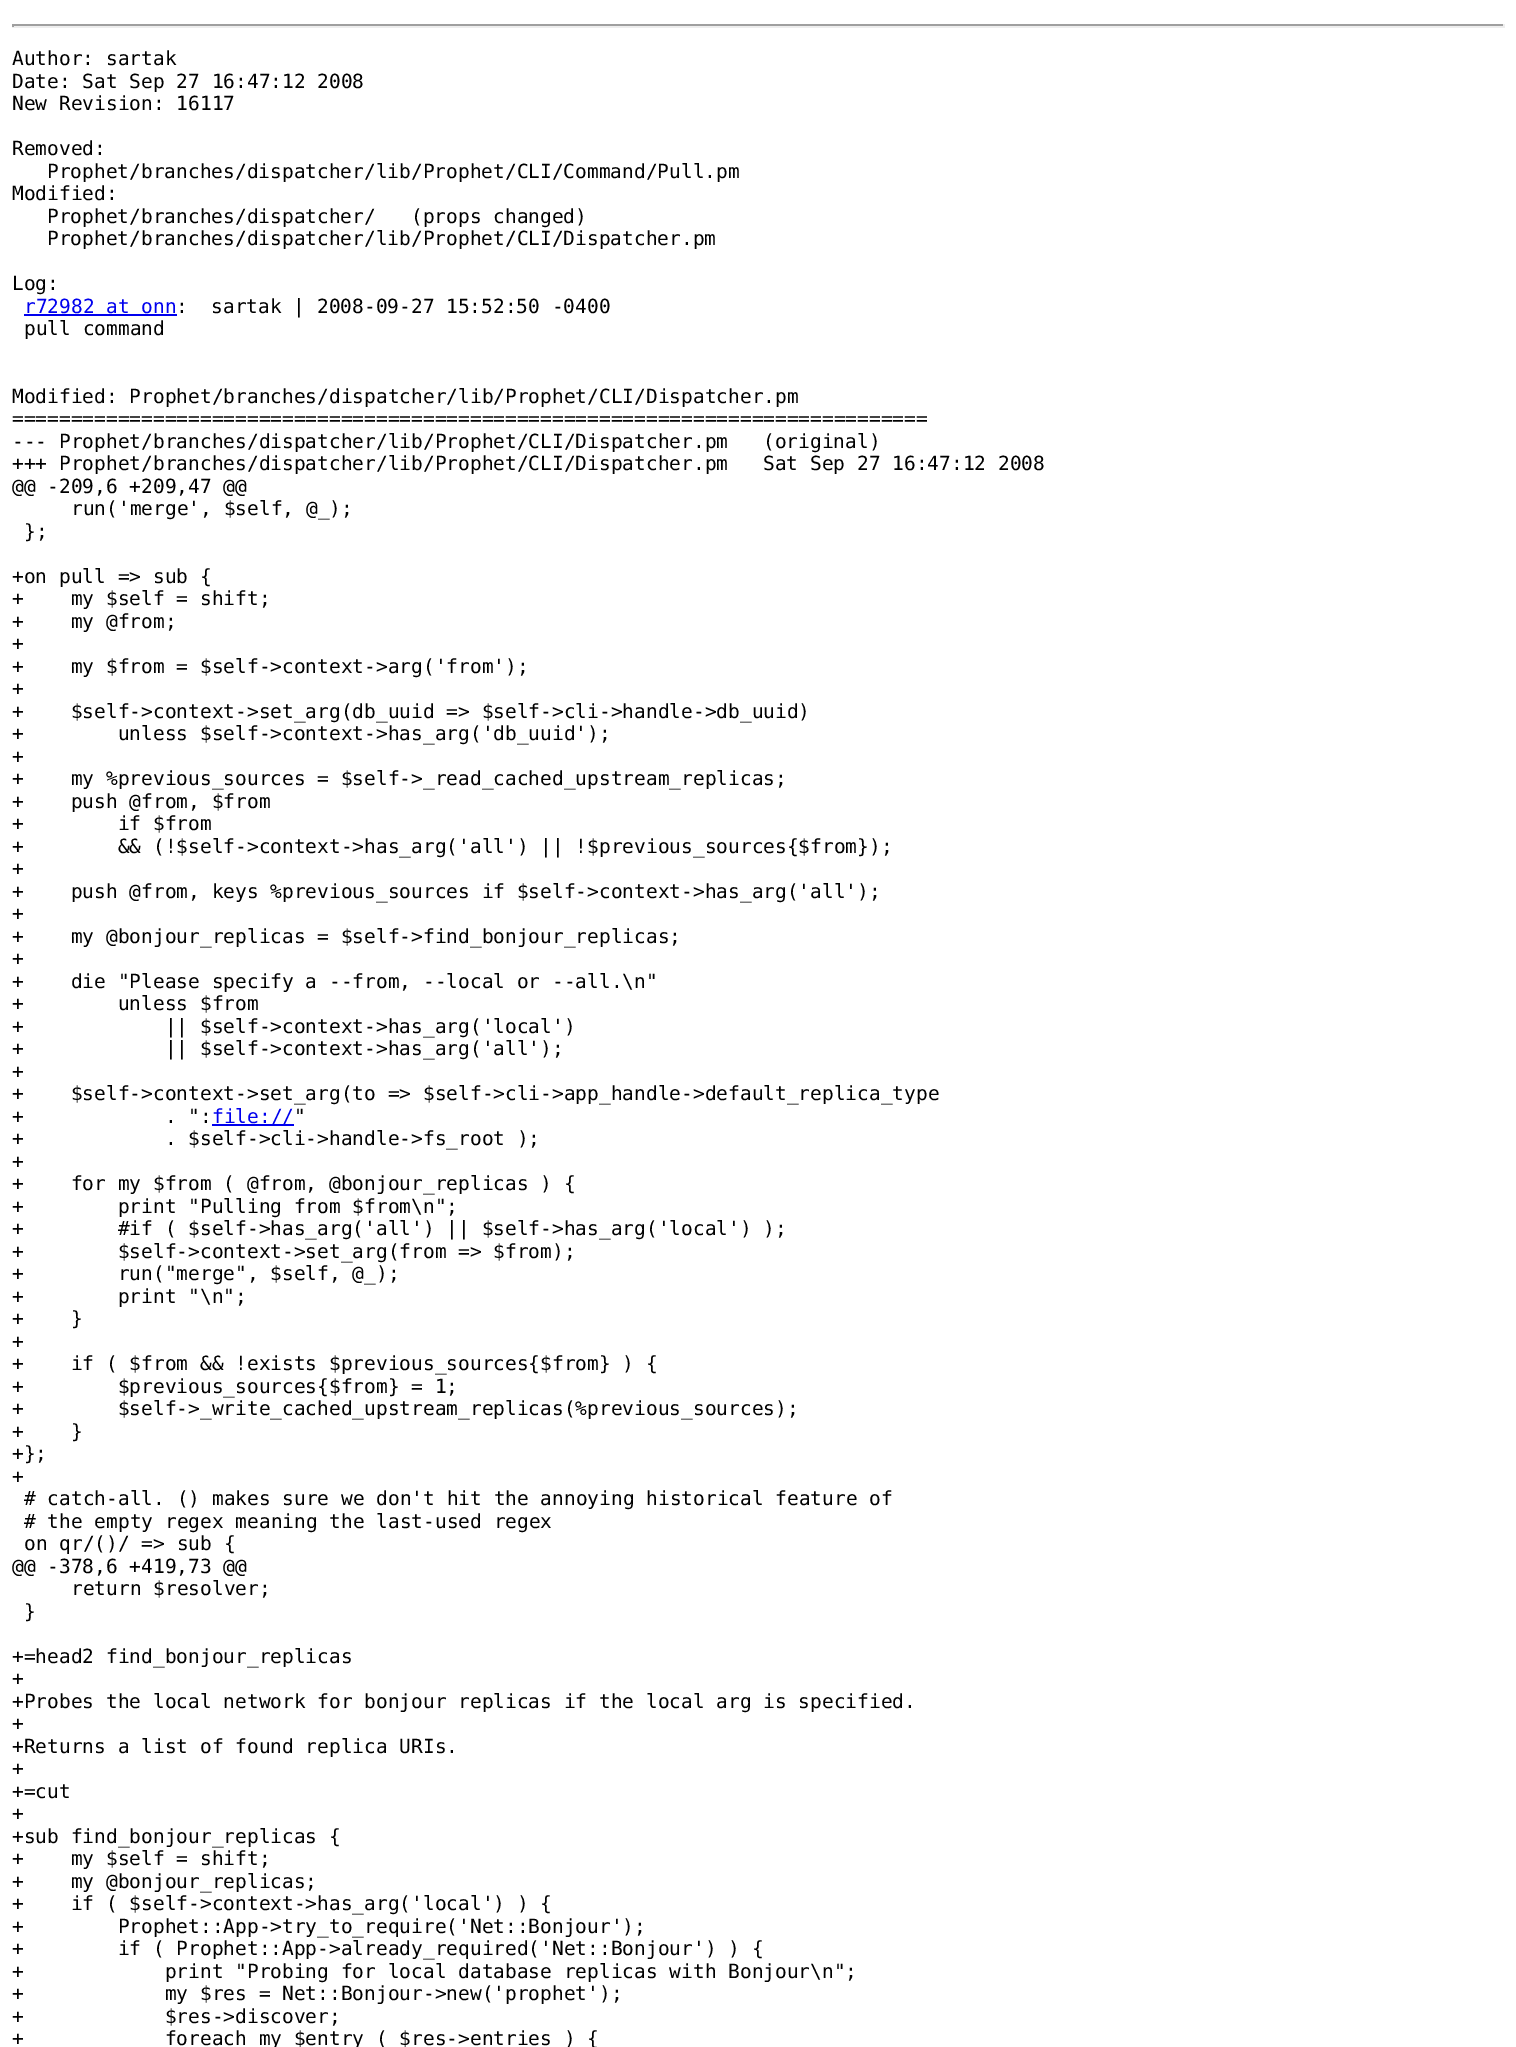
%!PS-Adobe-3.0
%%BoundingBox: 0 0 1516 2047
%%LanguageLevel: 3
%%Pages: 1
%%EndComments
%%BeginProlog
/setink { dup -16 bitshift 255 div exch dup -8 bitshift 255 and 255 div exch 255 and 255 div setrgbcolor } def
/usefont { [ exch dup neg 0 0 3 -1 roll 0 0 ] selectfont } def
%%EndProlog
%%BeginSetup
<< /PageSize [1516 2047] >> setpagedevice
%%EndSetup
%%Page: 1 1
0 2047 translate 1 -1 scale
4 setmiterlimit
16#FFFFFF setink
0 0 1516 2047 rectfill
[
    [12 24 1493 2 16#9F9F9F]
    [1503 24 2 3 16#EEEEEE]
    [12 26 1493 2 16#EEEEEE]
    [12 24 2 3 16#9F9F9F]
] { aload pop setink rectfill } forall
/DejaVuSansMono-Regular 19.5 usefont
16#000000 setink
[
    [(Author: sartak) 12 65]
    [(Date: Sat Sep 27 16:47:12 2008) 12 88]
    [(New Revision: 16117) 12 110]
    [(Removed:) 12 155]
    [(Prophet/branches/dispatcher/lib/Prophet/CLI/Command/Pull.pm) 47 178]
    [(Modified:) 12 200]
    [(Prophet/branches/dispatcher/   \(props changed\)) 47 223]
    [(Prophet/branches/dispatcher/lib/Prophet/CLI/Dispatcher.pm) 47 245]
    [(Log:) 12 290]
] { aload pop moveto show } forall
16#0000EE setink
24 313 moveto (r72982 at onn) show
24 314 153 2 rectfill
16#000000 setink
[
    [(:  sartak | 2008-09-27 15:52:50 -0400) 176 313]
    [(pull command) 24 335]
    [(Modified: Prophet/branches/dispatcher/lib/Prophet/CLI/Dispatcher.pm) 12 403]
    [(==============================================================================) 12 425]
    [(--- Prophet/branches/dispatcher/lib/Prophet/CLI/Dispatcher.pm) 12 448]
    [(\(original\)) 763 448]
    [(+++ Prophet/branches/dispatcher/lib/Prophet/CLI/Dispatcher.pm) 12 470]
    [(Sat Sep 27 16:47:12 2008) 763 470]
    [(@@ -209,6 +209,47 @@) 12 493]
    [(run\('merge', $self, @_\);) 71 515]
    [(};) 24 538]
    [(+on pull => sub {) 12 583]
    [(+    my $self = shift;) 12 605]
    [(+    my @from;) 12 628]
    [(+) 12 650]
    [(+    my $from = $self->context->arg\('from'\);) 12 673]
    [(+) 12 695]
    [(+    $self->context->set_arg\(db_uuid => $self->cli->handle->db_uuid\)) 12 718]
    [(+        unless $self->context->has_arg\('db_uuid'\);) 12 740]
    [(+) 12 763]
    [(+    my %previous_sources = $self->_read_cached_upstream_replicas;) 12 785]
    [(+    push @from, $from) 12 808]
    [(+        if $from) 12 830]
    [(+        && \(!$self->context->has_arg\('all'\) || !$previous_sources{$from}\);) 12 853]
    [(+) 12 875]
    [(+    push @from, keys %previous_sources if $self->context->has_arg\('all'\);) 12 898]
    [(+) 12 920]
    [(+    my @bonjour_replicas = $self->find_bonjour_replicas;) 12 943]
    [(+) 12 965]
    [(+    die "Please specify a --from, --local or --all.\\n") 12 988]
    [(+        unless $from) 12 1010]
    [(+            || $self->context->has_arg\('local'\)) 12 1033]
    [(+            || $self->context->has_arg\('all'\);) 12 1055]
    [(+) 12 1078]
    [(+    $self->context->set_arg\(to => $self->cli->app_handle->default_replica_type) 12 1100]
    [(+            . ":) 12 1123]
] { aload pop moveto show } forall
16#0000EE setink
212 1124 82 2 rectfill
212 1123 moveto (file://) show
16#000000 setink
[
    [(") 294 1123]
    [(+            . $self->cli->handle->fs_root \);) 12 1145]
    [(+) 12 1168]
    [(+    for my $from \( @from, @bonjour_replicas \) {) 12 1190]
    [(+        print "Pulling from $from\\n";) 12 1213]
    [(+        #if \( $self->has_arg\('all'\) || $self->has_arg\('local'\) \);) 12 1235]
    [(+        $self->context->set_arg\(from => $from\);) 12 1258]
    [(+        run\("merge", $self, @_\);) 12 1280]
    [(+        print "\\n";) 12 1303]
    [(+    }) 12 1325]
    [(+) 12 1348]
    [(+    if \( $from && !exists $previous_sources{$from} \) {) 12 1370]
    [(+        $previous_sources{$from} = 1;) 12 1393]
    [(+        $self->_write_cached_upstream_replicas\(%previous_sources\);) 12 1415]
    [(+    }) 12 1438]
    [(+};) 12 1460]
    [(+) 12 1483]
    [(# catch-all. \(\) makes sure we don't hit the annoying historical feature of) 24 1505]
    [(# the empty regex meaning the last-used regex) 24 1528]
    [(on qr/\(\)/ => sub {) 24 1550]
    [(@@ -378,6 +419,73 @@) 12 1573]
    [(return $resolver;) 71 1595]
    [(}) 24 1618]
    [(+=head2 find_bonjour_replicas) 12 1663]
    [(+) 12 1685]
    [(+Probes the local network for bonjour replicas if the local arg is specified.) 12 1708]
    [(+) 12 1730]
    [(+Returns a list of found replica URIs.) 12 1753]
    [(+) 12 1775]
    [(+=cut) 12 1798]
    [(+) 12 1820]
    [(+sub find_bonjour_replicas {) 12 1843]
    [(+    my $self = shift;) 12 1865]
    [(+    my @bonjour_replicas;) 12 1888]
    [(+    if \( $self->context->has_arg\('local'\) \) {) 12 1910]
    [(+        Prophet::App->try_to_require\('Net::Bonjour'\);) 12 1933]
    [(+        if \( Prophet::App->already_required\('Net::Bonjour'\) \) {) 12 1955]
    [(+            print "Probing for local database replicas with Bonjour\\n";) 12 1978]
    [(+            my $res = Net::Bonjour->new\('prophet'\);) 12 2000]
    [(+            $res->discover;) 12 2023]
    [(+            foreach my $entry \( $res->entries \) {) 12 2045]
] { aload pop moveto show } forall
showpage
%%EOF
